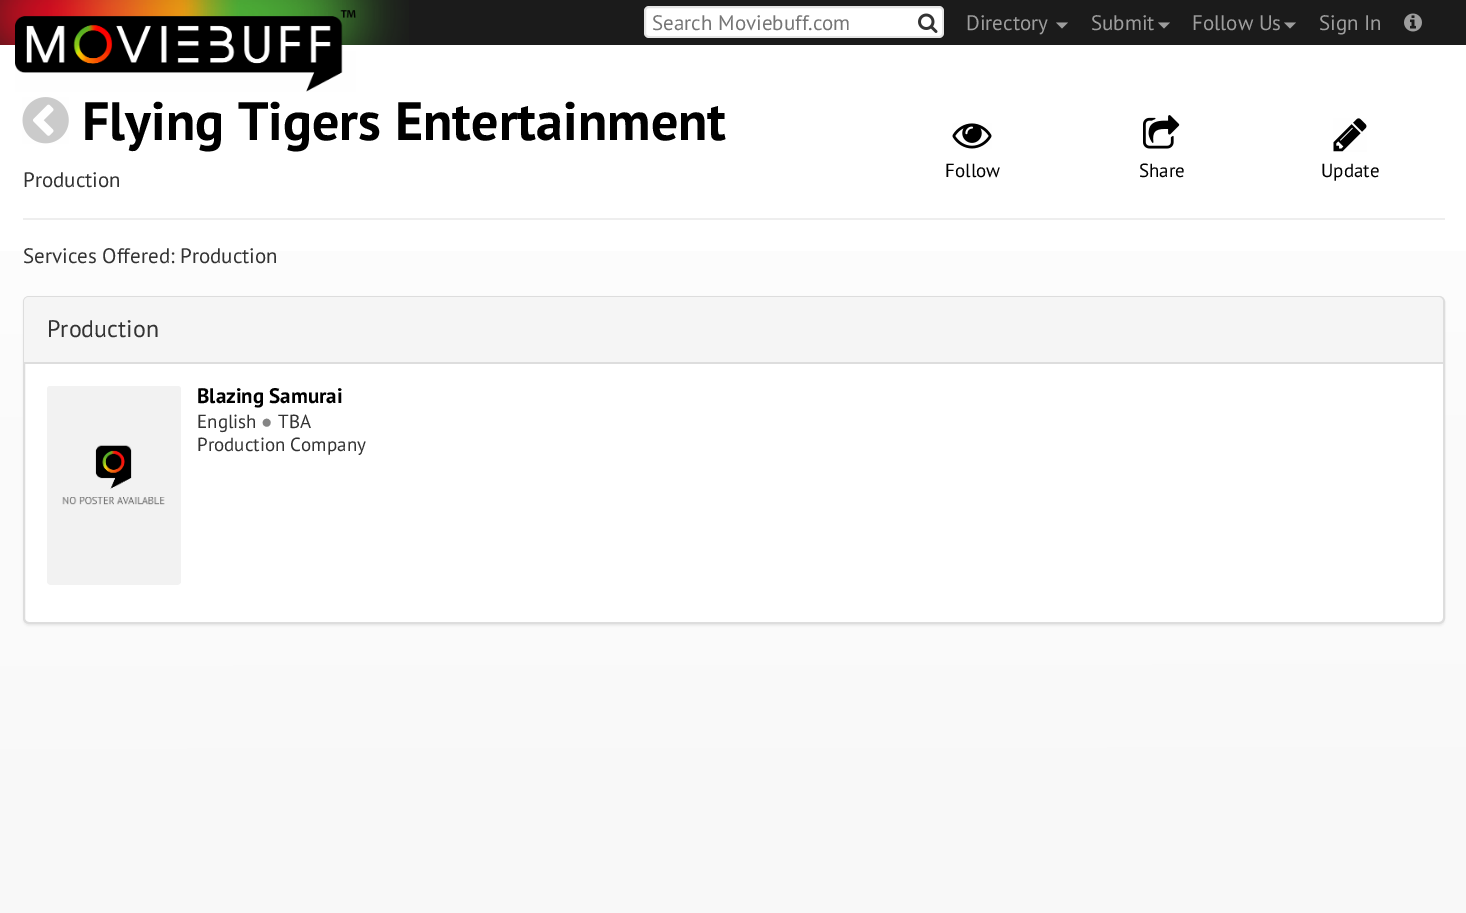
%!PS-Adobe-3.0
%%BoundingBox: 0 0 1466 913
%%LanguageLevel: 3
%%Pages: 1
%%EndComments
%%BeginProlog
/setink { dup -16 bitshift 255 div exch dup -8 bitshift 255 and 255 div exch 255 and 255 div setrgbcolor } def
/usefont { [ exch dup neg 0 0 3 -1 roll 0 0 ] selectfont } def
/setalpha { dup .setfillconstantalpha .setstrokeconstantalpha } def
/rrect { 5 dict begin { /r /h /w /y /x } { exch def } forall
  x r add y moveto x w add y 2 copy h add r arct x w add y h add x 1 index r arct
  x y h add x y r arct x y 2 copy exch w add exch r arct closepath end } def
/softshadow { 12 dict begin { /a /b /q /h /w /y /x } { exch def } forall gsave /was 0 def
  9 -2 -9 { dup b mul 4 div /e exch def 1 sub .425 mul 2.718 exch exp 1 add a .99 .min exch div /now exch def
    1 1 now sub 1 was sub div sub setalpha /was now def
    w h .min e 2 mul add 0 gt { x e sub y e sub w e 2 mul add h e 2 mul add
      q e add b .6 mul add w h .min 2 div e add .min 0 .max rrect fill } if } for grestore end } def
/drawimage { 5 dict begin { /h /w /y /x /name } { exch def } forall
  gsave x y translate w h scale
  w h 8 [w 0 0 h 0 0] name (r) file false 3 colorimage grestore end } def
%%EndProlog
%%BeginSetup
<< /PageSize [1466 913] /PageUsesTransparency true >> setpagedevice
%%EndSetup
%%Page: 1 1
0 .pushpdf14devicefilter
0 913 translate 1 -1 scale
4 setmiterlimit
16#FFFFFF setink
0 0 1466 913 rectfill
gsave 0 251 moveto 1466 251 lineto 1466 913 lineto 0 913 lineto closepath clip newpath
<< /ShadingType 2 /ColorSpace /DeviceRGB /Coords [733 0 734 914] /Extend [true true] /Function << /FunctionType 3 /Domain [0 1] /Functions [<< /FunctionType 2 /Domain [0 1] /C0 [1 1 1] /C1 [0.988 0.988 0.988] /N 1 >> << /FunctionType 2 /Domain [0 1] /C0 [0.988 0.988 0.988] /C1 [0.98 0.98 0.98] /N 1 >> << /FunctionType 2 /Domain [0 1] /C0 [0.98 0.98 0.98] /C1 [0.973 0.973 0.973] /N 1 >>] /Bounds [0.33 0.67] /Encode [0 1 0 1 0 1] >> >> shfill grestore
16#1B1B1B setink
0 0 1466 45 rectfill
(img1.raw) 0 0 409 45 drawimage
(img2.raw) 15 10 341 82 drawimage
16#FFFFFF setink
644 6 300 32 5 rrect fill
0.1 setalpha
16#000000 setink
2 setlinewidth
645 7 298 30 4 rrect stroke
/PTSans-Regular 21 usefont
1 setalpha
16#757575 setink
652 30 moveto (Search Moviebuff.com) show
(img3.raw) 918 13 20 20 drawimage
16#9D9D9D setink
966 30 moveto (Directory) show
1056 22.5 moveto 1068 22.5 lineto 1062 28.5 lineto closepath fill
1091 30 moveto (Submit) show
1158 22.5 moveto 1170 22.5 lineto 1164 28.5 lineto closepath fill
1192 30 moveto (Follow Us) show
1284 22.5 moveto 1296 22.5 lineto 1290 28.5 lineto closepath fill
1319 30 moveto (Sign In) show
(img4.raw) 1404 13 18 19 drawimage
(img5.raw) 22 97 47 47 drawimage
/PTSans-Bold 54 usefont
16#000000 setink
82 140 moveto (Flying Tigers Entertainment) show
/PTSans-Regular 21 usefont
16#333333 setink
23 187 moveto (Production) show
(img6.raw) 952 123 40 26 drawimage
/PTSans-Regular 19 usefont
16#000000 setink
945 177 moveto (Follow) show
(img7.raw) 1143 115 37 34 drawimage
1139 177 moveto (Share) show
(img8.raw) 1333 118 34 34 drawimage
1321 177 moveto (Update) show
16#EEEEEE setink
23 218 1422 2 rectfill
/PTSans-Regular 21 usefont
16#333333 setink
23 263 moveto (Services Offered: Production) show
16#000000 setink
23 297 1422 329 6 1 0.05 softshadow
16#FFFFFF setink
24 297 1420 326 5 rrect gsave fill grestore
16#DDDDDD setink
stroke
16#F5F5F5 setink
29 297 moveto 1438 297 lineto 1441 297 1443 299 1443 302 curveto 1443 363 lineto 24 363 lineto 24 302 lineto 24 299 26 297 29 297 curveto closepath fill
16#DDDDDD setink
24 362 1419 2 rectfill
/PTSans-Regular 24 usefont
16#333333 setink
47 337 moveto (Production) show
(img9.raw) 47 386 134 199 drawimage
/PTSans-Bold 21 usefont
16#000000 setink
197 403 moveto (Blazing Samurai) show
/PTSans-Regular 19 usefont
16#333333 setink
197 428 moveto (English) show
/LiberationSerif-Regular 19 usefont
16#858585 setink
261 428 moveto (●) show
/PTSans-Regular 19 usefont
16#333333 setink
278 428 moveto (TBA) show
197 451 moveto (Production Company) show
.poppdf14devicefilter showpage
%%EOF
